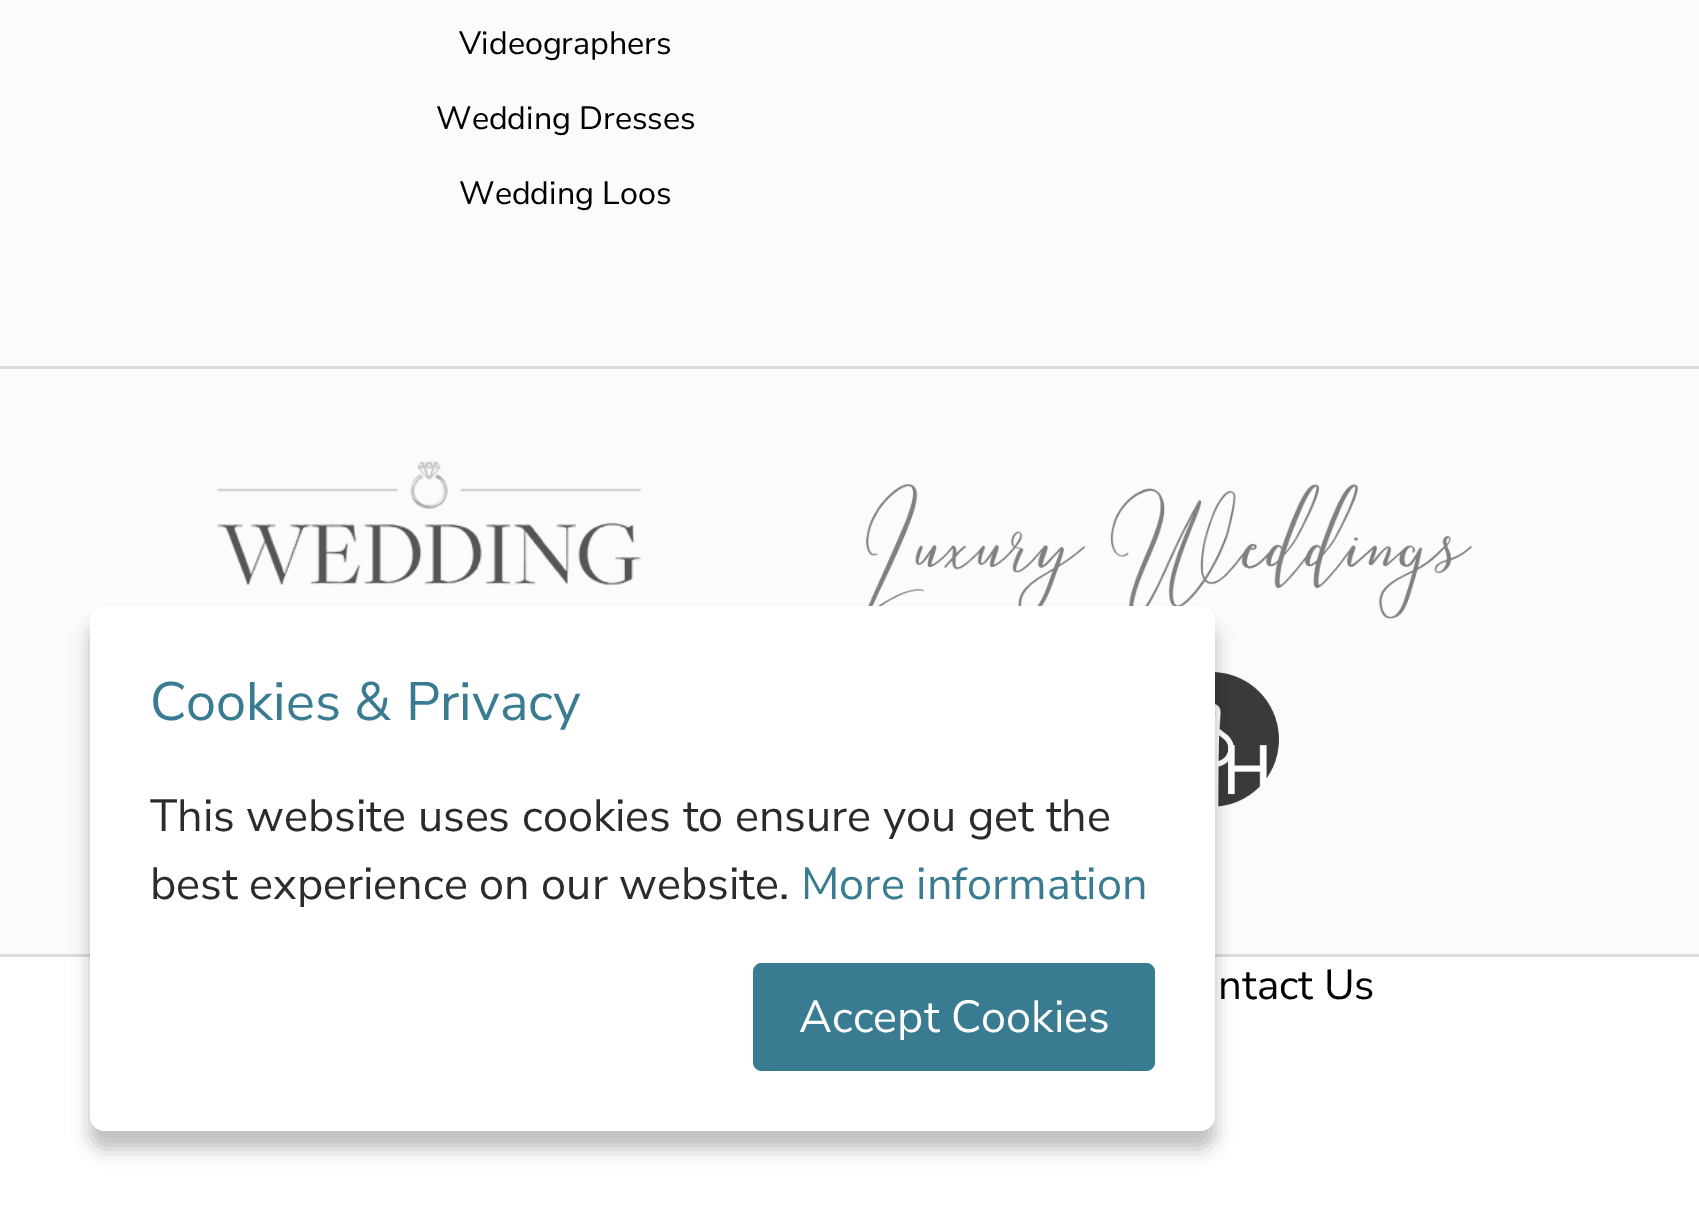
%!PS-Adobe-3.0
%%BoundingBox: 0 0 1699 1219
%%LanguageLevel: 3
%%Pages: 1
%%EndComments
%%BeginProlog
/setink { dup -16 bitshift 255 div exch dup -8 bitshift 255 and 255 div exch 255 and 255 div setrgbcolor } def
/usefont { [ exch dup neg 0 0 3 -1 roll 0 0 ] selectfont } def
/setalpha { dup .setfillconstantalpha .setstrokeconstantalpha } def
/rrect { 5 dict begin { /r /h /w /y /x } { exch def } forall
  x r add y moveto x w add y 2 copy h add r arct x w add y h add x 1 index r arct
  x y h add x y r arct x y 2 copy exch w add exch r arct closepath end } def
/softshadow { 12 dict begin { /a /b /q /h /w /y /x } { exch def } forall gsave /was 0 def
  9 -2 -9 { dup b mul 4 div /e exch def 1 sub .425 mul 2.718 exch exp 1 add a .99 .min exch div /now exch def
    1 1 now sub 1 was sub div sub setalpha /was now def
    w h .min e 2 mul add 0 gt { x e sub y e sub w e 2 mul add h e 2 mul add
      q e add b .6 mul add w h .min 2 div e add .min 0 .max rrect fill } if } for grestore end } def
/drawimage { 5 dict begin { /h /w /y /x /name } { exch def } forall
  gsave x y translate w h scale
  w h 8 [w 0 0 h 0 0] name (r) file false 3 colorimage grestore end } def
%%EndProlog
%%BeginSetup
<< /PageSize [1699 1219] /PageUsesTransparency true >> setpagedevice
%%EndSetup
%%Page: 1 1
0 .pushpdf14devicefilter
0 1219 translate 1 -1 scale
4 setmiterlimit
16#FFFFFF setink
0 0 1699 1219 rectfill
16#FBFBFB setink
0 0 1699 366 rectfill
16#DCDCDC setink
0 366 1699 3 rectfill
/NunitoSans-Regular 32.25 usefont
16#000000 setink
[
    [(Videographers) 459 54]
    [(Wedding Dresses) 436 129]
    [(Wedding Loos) 459 204]
] { aload pop moveto show } forall
16#FBFBFB setink
0 369 1699 585 rectfill
16#DCDCDC setink
0 954 1699 3 rectfill
(img1.raw) 216 461 426 125 drawimage
(img2.raw) 866 483 607 136 drawimage
(img3.raw) 1215 672 64 135 drawimage
/NunitoSans-Regular 42 usefont
16#000000 setink
1218 999 moveto (ntact Us) show
90 624 1125 525 15 9 0.25 softshadow
16#FFFFFF setink
90 606 1125 525 15 rrect fill
/NunitoSans-Regular 54 usefont
16#397C92 setink
150 720 moveto (Cookies & Privacy) show
/NunitoSans-Regular 45 usefont
16#2B2B2B setink
150 831 moveto (This website uses cookies to ensure you get the) show
150 899 moveto (best experience on our website.) show
16#397C92 setink
801 899 moveto (More information) show
753 963 402 108 9 rrect fill
16#FFFFFF setink
799 1032 moveto (Accept Cookies) show
.poppdf14devicefilter showpage
%%EOF
